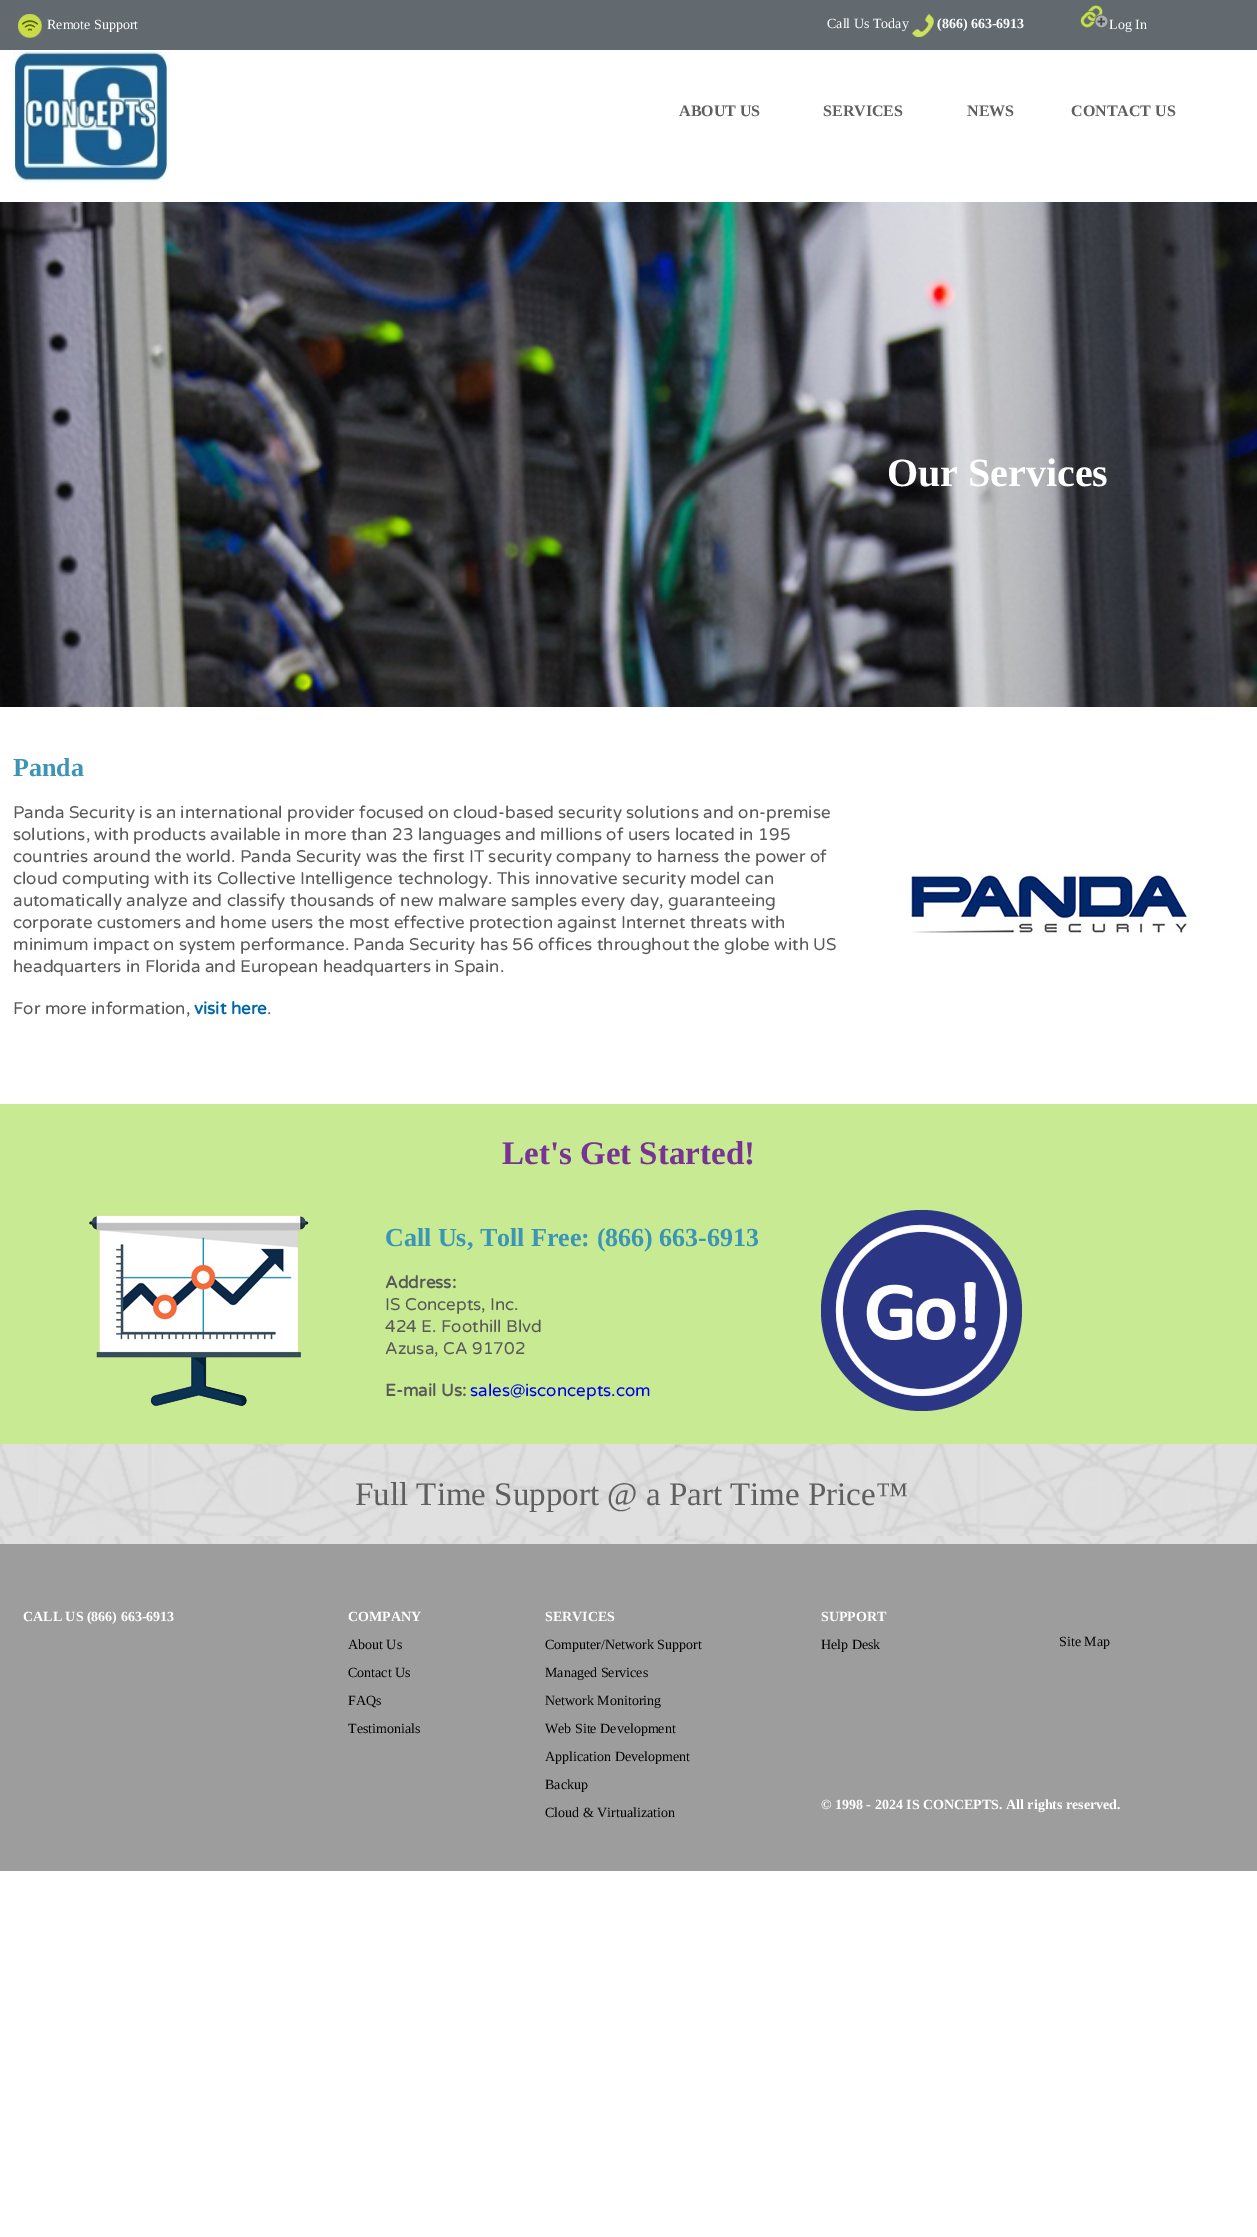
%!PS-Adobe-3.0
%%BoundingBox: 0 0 1257 2237
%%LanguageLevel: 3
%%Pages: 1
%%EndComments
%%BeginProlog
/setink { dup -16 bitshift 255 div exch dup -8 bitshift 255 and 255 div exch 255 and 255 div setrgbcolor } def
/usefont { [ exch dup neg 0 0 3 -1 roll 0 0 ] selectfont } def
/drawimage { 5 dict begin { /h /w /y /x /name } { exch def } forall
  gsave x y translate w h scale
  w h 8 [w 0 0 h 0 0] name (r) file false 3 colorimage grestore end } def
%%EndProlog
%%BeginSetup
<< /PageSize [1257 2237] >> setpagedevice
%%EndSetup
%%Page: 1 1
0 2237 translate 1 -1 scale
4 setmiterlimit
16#FFFFFF setink
0 0 1257 2237 rectfill
16#62696F setink
0 0 1257 50 rectfill
(img1.raw) 17 13 25 25 drawimage
/LiberationSerif-Regular 14 usefont
16#FFFFFF setink
47 29 moveto (Remote Support) show
827 28 moveto (Call Us Today) show
(img2.raw) 909 14 28 23 drawimage
/LiberationSerif-Bold 14 usefont
937 28 moveto (\(866\) 663-6913) show
(img3.raw) 1080 5 28 24 drawimage
/LiberationSerif-Regular 14 usefont
1109 29 moveto (Log In) show
(img4.raw) 13 50 156 132 drawimage
/LiberationSerif-Bold 16 usefont
16#605F5F setink
[
    [(ABOUT US) 679 116]
    [(SERVICES) 823 116]
    [(NEWS) 967 116]
    [(CONTACT US) 1071 116]
] { aload pop moveto show } forall
(img5.raw) 0 202 1257 505 drawimage
/LiberationSerif-Bold 40 usefont
16#FFFFFF setink
887 486 moveto (Our Services) show
/LiberationSerif-Bold 26 usefont
16#3D95B6 setink
13 776 moveto (Panda) show
/VarelaRound-Regular 17 usefont
16#595959 setink
[
    [(Panda Security is an international provider focused on cloud-based security solutions and on-premise) 13 818]
    [(solutions, with products available in more than 23 languages and millions of users located in 195) 13 840]
    [(countries around the world. Panda Security was the first IT security company to harness the power of) 13 862]
    [(cloud computing with its Collective Intelligence technology. This innovative security model can) 13 884]
    [(automatically analyze and classify thousands of new malware samples every day, guaranteeing) 13 906]
    [(corporate customers and home users the most effective protection against Internet threats with) 13 928]
    [(minimum impact on system performance. Panda Security has 56 offices throughout the globe with US) 13 950]
    [(headquarters in Florida and European headquarters in Spain.) 13 972]
    [(For more information,) 13 1014]
] { aload pop moveto show } forall
/VarelaRound-Bold 17 usefont
16#0068A6 setink
194 1014 moveto (visit here) show
/VarelaRound-Regular 17 usefont
16#595959 setink
267 1014 moveto (.) show
(img6.raw) 905 870 288 63 drawimage
16#C8EA93 setink
0 1104 1257 340 rectfill
/LiberationSerif-Bold 33 usefont
16#773495 setink
502 1164 moveto (Let's Get Started!) show
(img7.raw) 86 1212 224 195 drawimage
/LiberationSerif-Bold 26 usefont
16#3D95B6 setink
385 1246 moveto (Call Us, Toll Free: \(866\) 663-6913) show
/VarelaRound-Bold 17 usefont
16#595959 setink
385 1288 moveto (Address:) show
/VarelaRound-Regular 17 usefont
[
    [(IS Concepts, Inc.) 385 1310]
    [(424 E. Foothill Blvd) 385 1332]
    [(Azusa, CA 91702) 385 1354]
] { aload pop moveto show } forall
/VarelaRound-Bold 17 usefont
385 1396 moveto (E-mail Us:) show
/VarelaRound-Regular 17 usefont
16#0000EE setink
470 1396 moveto (sales@isconcepts.com) show
(img8.raw) 820 1206 208 208 drawimage
(img9.raw) 0 1444 1257 100 drawimage
/LiberationSerif-Regular 33 usefont
16#605F5F setink
355 1505 moveto (Full Time Support @ a Part Time Price™) show
16#9D9D9D setink
0 1544 1257 327 rectfill
/LiberationSerif-Bold 14 usefont
16#FFFFFF setink
23 1621 moveto (CALL US \(866\) 663-6913) show
348 1621 moveto (COMPANY) show
/LiberationSerif-Regular 14 usefont
16#050505 setink
[
    [(About Us) 348 1649]
    [(Contact Us) 348 1677]
    [(FAQs) 348 1705]
    [(Testimonials) 348 1733]
] { aload pop moveto show } forall
/LiberationSerif-Bold 14 usefont
16#FFFFFF setink
545 1621 moveto (SERVICES) show
/LiberationSerif-Regular 14 usefont
16#050505 setink
[
    [(Computer/Network Support) 545 1649]
    [(Managed Services) 545 1677]
    [(Network Monitoring) 545 1705]
    [(Web Site Development) 545 1733]
    [(Application Development) 545 1761]
    [(Backup) 545 1789]
    [(Cloud & Virtualization) 545 1817]
] { aload pop moveto show } forall
/LiberationSerif-Bold 14 usefont
16#FFFFFF setink
821 1621 moveto (SUPPORT) show
/LiberationSerif-Regular 14 usefont
16#050505 setink
821 1649 moveto (Help Desk) show
1059 1646 moveto (Site Map) show
/LiberationSerif-Bold 14 usefont
16#FFFFFF setink
821 1809 moveto (© 1998 - 2024 IS CONCEPTS. All rights reserved.) show
showpage
%%EOF
